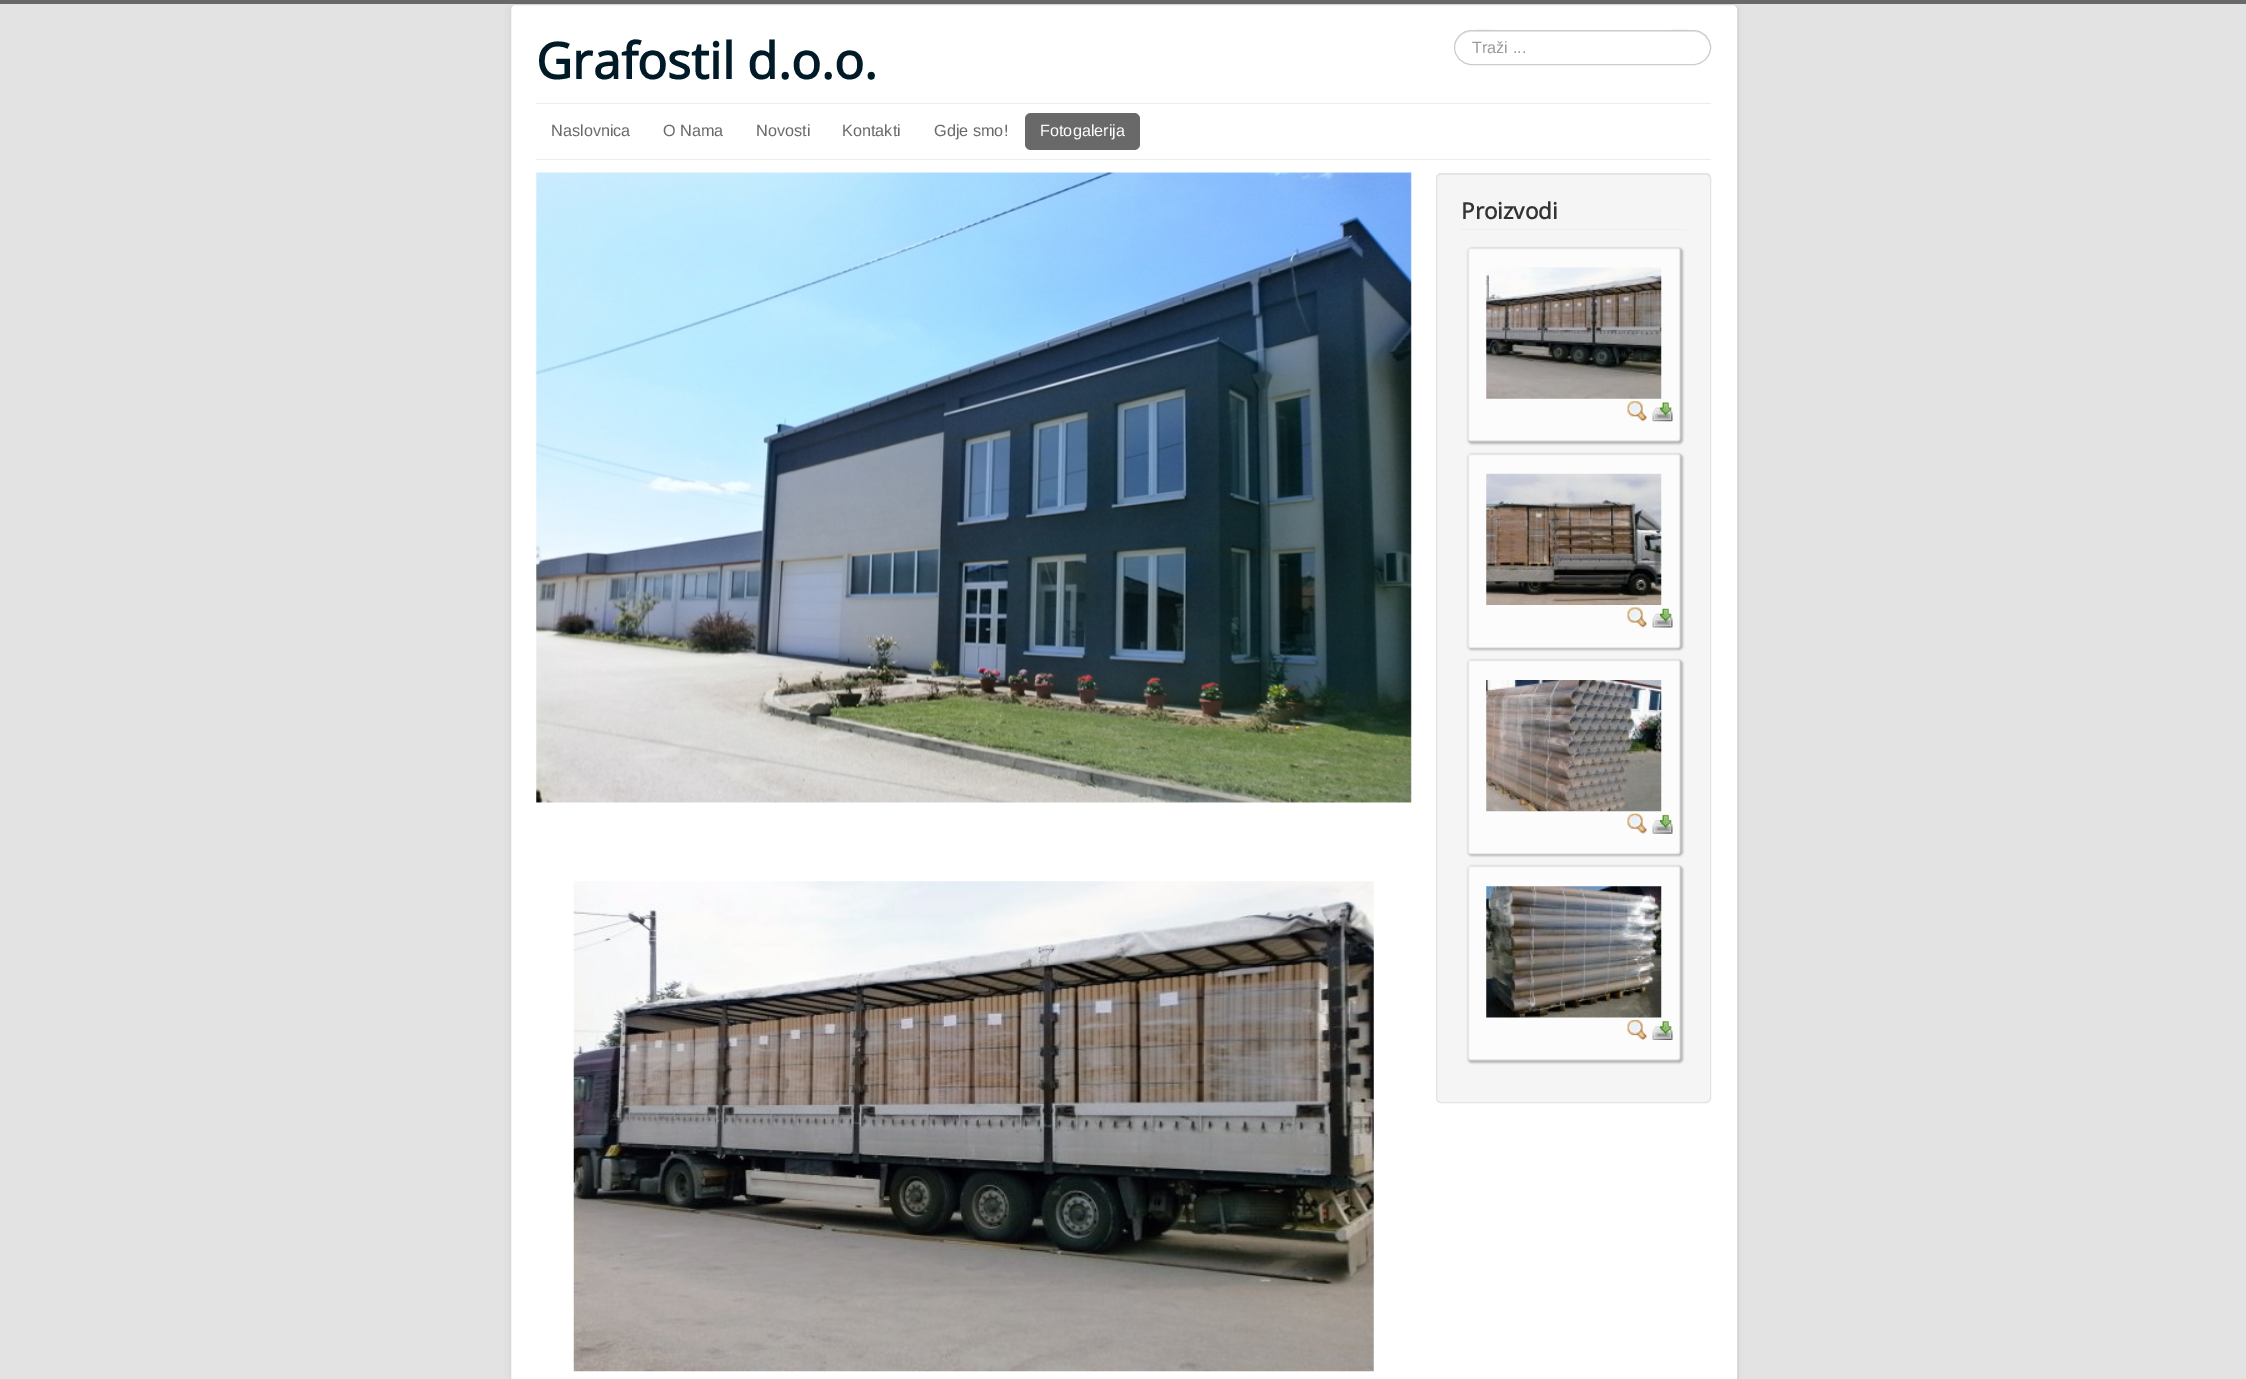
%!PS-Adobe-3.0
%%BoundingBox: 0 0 2246 1379
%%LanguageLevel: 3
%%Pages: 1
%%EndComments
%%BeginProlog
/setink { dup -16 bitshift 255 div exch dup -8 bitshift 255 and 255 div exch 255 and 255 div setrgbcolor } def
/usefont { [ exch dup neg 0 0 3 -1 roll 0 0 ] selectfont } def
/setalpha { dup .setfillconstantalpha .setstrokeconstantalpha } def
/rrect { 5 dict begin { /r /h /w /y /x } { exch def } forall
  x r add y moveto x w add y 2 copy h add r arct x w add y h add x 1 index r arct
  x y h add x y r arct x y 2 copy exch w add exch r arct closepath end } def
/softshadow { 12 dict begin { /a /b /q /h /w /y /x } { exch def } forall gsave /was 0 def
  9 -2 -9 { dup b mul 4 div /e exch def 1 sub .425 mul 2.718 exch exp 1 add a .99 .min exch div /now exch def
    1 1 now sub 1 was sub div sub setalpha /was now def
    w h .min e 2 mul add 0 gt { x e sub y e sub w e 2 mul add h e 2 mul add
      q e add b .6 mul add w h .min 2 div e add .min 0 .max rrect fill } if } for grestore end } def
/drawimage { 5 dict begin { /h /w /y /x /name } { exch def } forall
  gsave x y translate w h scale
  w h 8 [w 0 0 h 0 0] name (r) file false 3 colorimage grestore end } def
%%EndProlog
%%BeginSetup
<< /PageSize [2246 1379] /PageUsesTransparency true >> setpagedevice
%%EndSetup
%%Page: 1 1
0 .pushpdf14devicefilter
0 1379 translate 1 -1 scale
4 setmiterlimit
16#E3E3E3 setink
0 0 2246 1379 rectfill
16#696969 setink
0 0 2246 4 rectfill
16#000000 setink
510 4 1228 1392 5 4 0.05 softshadow
16#FFFFFF setink
510 4 1228 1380 5 rrect fill
0.15 setalpha
16#000000 setink
510.5 4.5 1227 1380 4.5 rrect stroke
/OpenSans-Bold 50 usefont
1 setalpha
16#001A27 setink
536 79 moveto (Grafostil d.o.o.) show
16#ECECEC setink
1471 32 moveto 1694 32 lineto 1703 32 1710 40 1710 48 curveto 1711 22 1667 31 1656 31 curveto 1508 31 lineto 1498 31 1454 22 1455 48 curveto 1455 40 1462 32 1471 32 curveto closepath fill
16#CCCCCC setink
1454.5 30.5 256 34 17 rrect stroke
/LiberationSans-Regular 16.25 usefont
16#999999 setink
1472 53 moveto (Traži ...) show
16#ECECEC setink
536 103 1175 1 rectfill
536 159 1175 1 rectfill
16#696969 setink
[
    [(Naslovnica) 551 136]
    [(O Nama) 663 136]
    [(Novosti) 756 136]
    [(Kontakti) 842 136]
    [(Gdje smo!) 934 136]
] { aload pop moveto show } forall
1025 113 115 37 6 rrect fill
16#FFFFFF setink
1040 136 moveto (Fotogalerija) show
(img1.raw) 536 172 876 631 drawimage
(img2.raw) 573 881 801 491 drawimage
16#F5F5F5 setink
1436 173 275 930 5 rrect fill
16#E9E9E9 setink
1441 175 moveto 1706 175 lineto 1708 175 1710 177 1710 179 curveto 1710 176 1709 174 1706 174 curveto 1442 174 lineto 1439 174 1438 176 1438 179 curveto 1438 177 1439 175 1441 175 curveto closepath fill
16#E3E3E3 setink
1436.5 173.5 274 929 4.5 rrect stroke
16#EEEEEE setink
1461 229 225 1 rectfill
/OpenSans-Bold 22.5 usefont
16#333333 setink
1461 219 moveto (Proizvodi) show
16#787878 setink
1468 248 215 196 4 1 0.5 softshadow
16#FCFCFC setink
1468.5 248.5 211 192 2 rrect gsave fill grestore
16#E8E8E8 setink
stroke
(img3.raw) 1486 267 176 132 drawimage
(img4.raw) 1627 401 20 21 drawimage
(img5.raw) 1652 402 21 20 drawimage
16#787878 setink
1468 454 215 196 4 1 0.5 softshadow
16#FCFCFC setink
1468.5 454.5 211 193 2 rrect gsave fill grestore
16#E8E8E8 setink
stroke
(img6.raw) 1486 473 176 132 drawimage
(img7.raw) 1627 607 20 21 drawimage
(img8.raw) 1652 608 21 20 drawimage
16#787878 setink
1468 660 215 196 4 1 0.5 softshadow
16#FCFCFC setink
1468.5 660.5 211 193 2 rrect gsave fill grestore
16#E8E8E8 setink
stroke
(img9.raw) 1486 680 176 132 drawimage
(img10.raw) 1627 813 20 21 drawimage
(img11.raw) 1652 814 21 20 drawimage
16#787878 setink
1468 866 215 197 4 1 0.5 softshadow
16#FCFCFC setink
1468.5 866.5 211 193 2 rrect gsave fill grestore
16#E8E8E8 setink
stroke
(img12.raw) 1486 886 176 132 drawimage
(img13.raw) 1627 1020 20 20 drawimage
(img14.raw) 1652 1021 21 19 drawimage
.poppdf14devicefilter showpage
%%EOF
